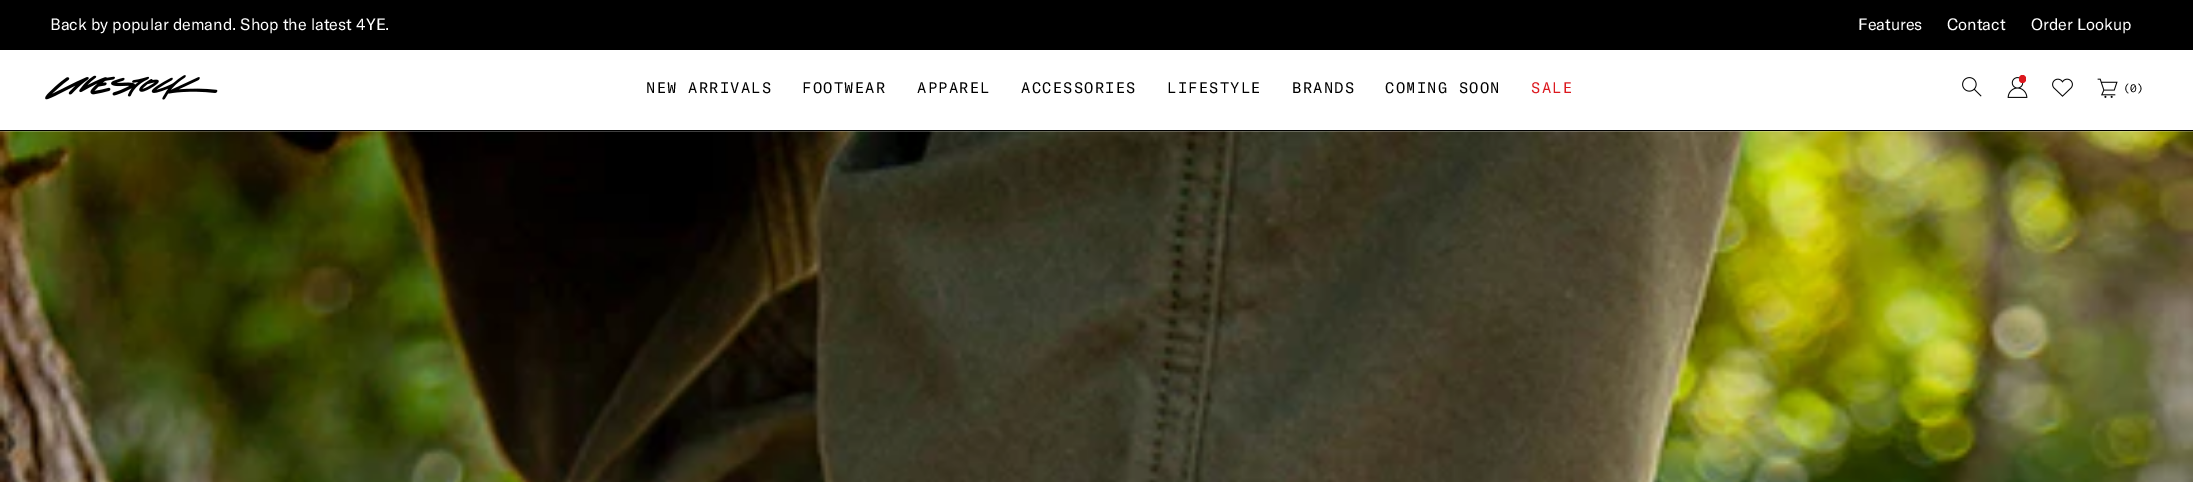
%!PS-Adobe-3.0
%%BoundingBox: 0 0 2193 482
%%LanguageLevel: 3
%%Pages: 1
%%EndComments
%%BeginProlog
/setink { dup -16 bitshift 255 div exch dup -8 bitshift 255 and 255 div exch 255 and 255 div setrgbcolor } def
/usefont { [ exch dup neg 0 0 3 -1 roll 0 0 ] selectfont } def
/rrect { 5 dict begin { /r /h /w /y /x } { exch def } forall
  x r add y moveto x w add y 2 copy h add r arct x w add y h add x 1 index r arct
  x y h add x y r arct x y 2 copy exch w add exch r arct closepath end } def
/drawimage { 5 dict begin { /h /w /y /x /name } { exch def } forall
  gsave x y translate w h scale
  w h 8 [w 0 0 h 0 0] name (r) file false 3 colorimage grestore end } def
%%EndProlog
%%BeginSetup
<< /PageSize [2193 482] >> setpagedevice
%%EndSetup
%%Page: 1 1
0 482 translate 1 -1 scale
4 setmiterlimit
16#FFFFFF setink
0 0 2193 482 rectfill
16#000000 setink
0 0 2193 50 rectfill
/GTAmerica-Regular 16.25 usefont
16#FFFFFF setink
[
    [(Back by popular demand. Shop the latest 4YE.) 50 30]
    [(Features) 1858 30]
    [(Contact) 1947 30]
    [(Order Lookup) 2031 30]
] { aload pop moveto show } forall
16#000000 setink
0 130 2193 1 rectfill
(img1.raw) 45 75 173 25 drawimage
/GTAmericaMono-Regular 15 usefont
646 93 moveto 1.25 0 (NEW ARRIVALS) ashow
802 93 moveto 1.25 0 (FOOTWEAR) ashow
917 93 moveto 1.25 0 (APPAREL) ashow
1021 93 moveto 1.25 0 (ACCESSORIES) ashow
1167 93 moveto 1.25 0 (LIFESTYLE) ashow
1292 93 moveto 1.25 0 (BRANDS) ashow
1385 93 moveto 1.25 0 (COMING SOON) ashow
16#DC181E setink
1531 93 moveto 1.25 0 (SALE) ashow
(img2.raw) 1962 77 20 20 drawimage
(img3.raw) 2007 77 21 21 drawimage
2019 75 7 8 3.5 rrect fill
(img4.raw) 2052 78 21 19 drawimage
(img5.raw) 2097 78 21 20 drawimage
/GTAmericaMono-Regular 11 usefont
16#000000 setink
2123 92 moveto (\(0\)) show
(img6.raw) 0 131 2193 351 drawimage
showpage
%%EOF
